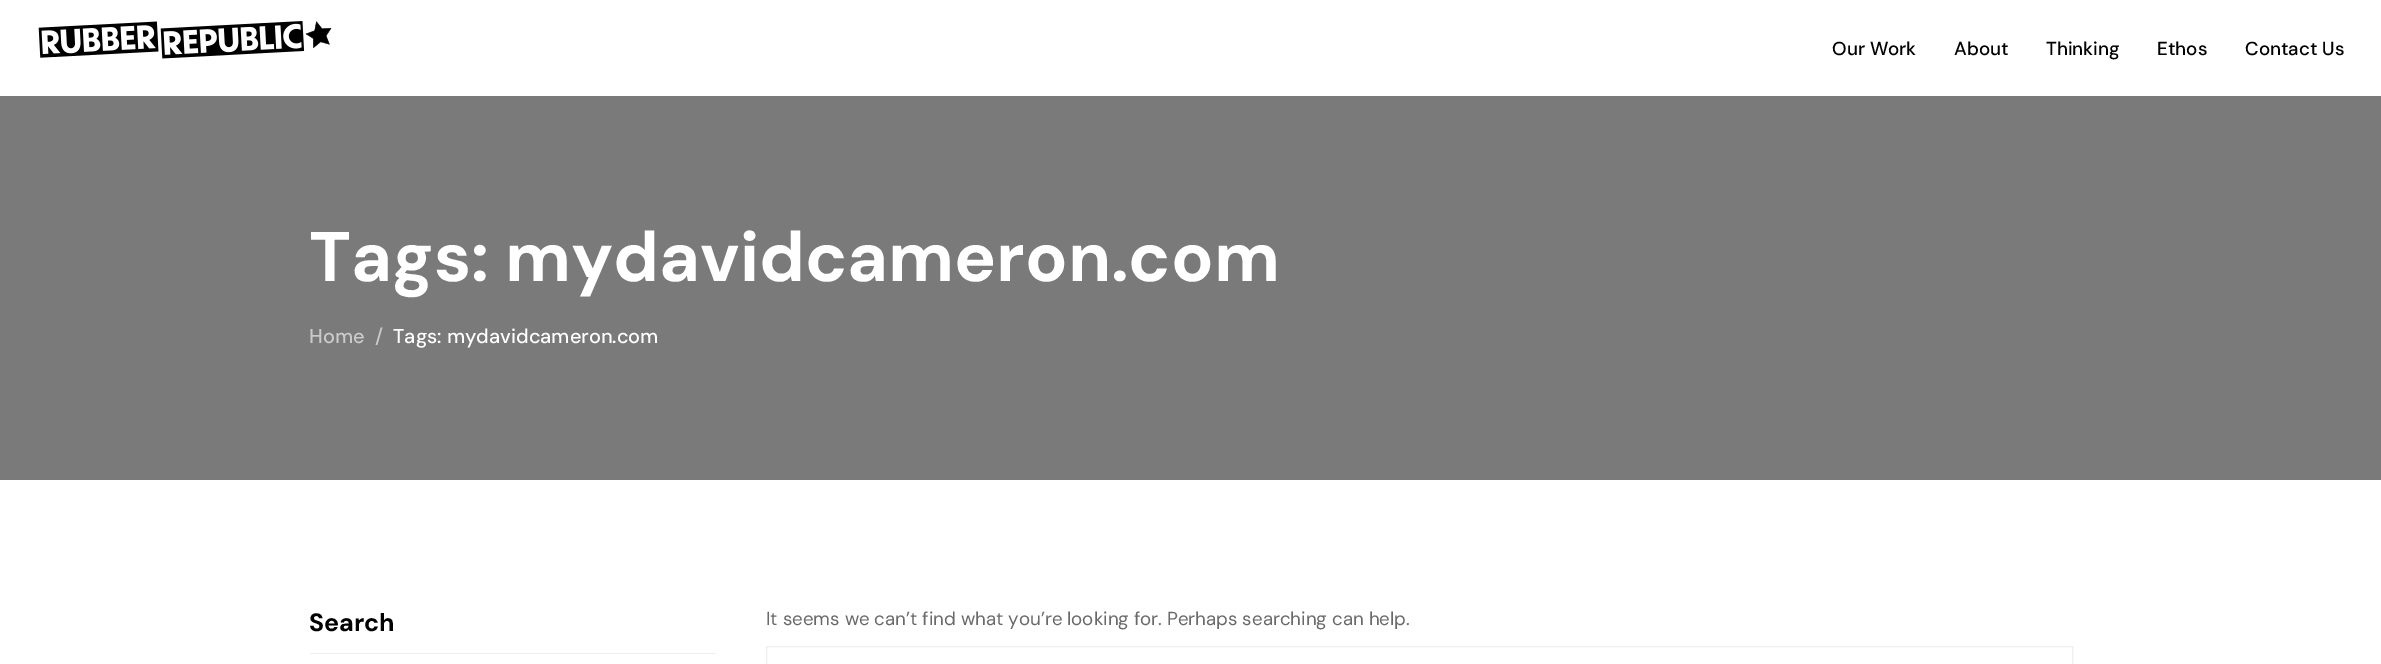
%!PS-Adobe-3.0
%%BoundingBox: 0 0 2381 664
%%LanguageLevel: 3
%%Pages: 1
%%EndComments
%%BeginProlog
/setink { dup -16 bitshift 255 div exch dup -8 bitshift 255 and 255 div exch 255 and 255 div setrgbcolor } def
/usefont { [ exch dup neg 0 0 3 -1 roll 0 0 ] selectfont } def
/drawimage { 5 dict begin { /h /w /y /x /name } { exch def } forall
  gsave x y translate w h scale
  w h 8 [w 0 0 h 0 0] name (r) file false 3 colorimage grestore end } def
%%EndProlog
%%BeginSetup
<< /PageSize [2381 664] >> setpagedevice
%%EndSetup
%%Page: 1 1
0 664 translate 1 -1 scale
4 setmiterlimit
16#FFFFFF setink
0 0 2381 664 rectfill
(img1.raw) 38 21 294 38 drawimage
/DMSans-Medium 18.75 usefont
16#000000 setink
[
    [(Our Work) 1832 55]
    [(About) 1954 55]
    [(Thinking) 2046 55]
    [(Ethos) 2157 55]
    [(Contact Us) 2245 55]
] { aload pop moveto show } forall
16#7A7A7A setink
0 96 2381 384 rectfill
/DMSans-Bold 70 usefont
16#FFFFFF setink
309 281 moveto (Tags: mydavidcameron.com) show
/DMSans-Medium 20 usefont
16#CACACA setink
309 343 moveto (Home) show
375 343 moveto (/) show
16#FFFFFF setink
393 343 moveto (Tags: mydavidcameron.com) show
16#EEEEEE setink
310 653 406 1 rectfill
/DMSans-Bold 25 usefont
16#000000 setink
309 631 moveto (Search) show
/DMSans-Regular 18.75 usefont
16#696969 setink
766 625 moveto (It seems we can’t find what you’re looking for. Perhaps searching can help.) show
16#EEEEEE setink
766.5 646.5 1306 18 rectstroke
showpage
%%EOF
